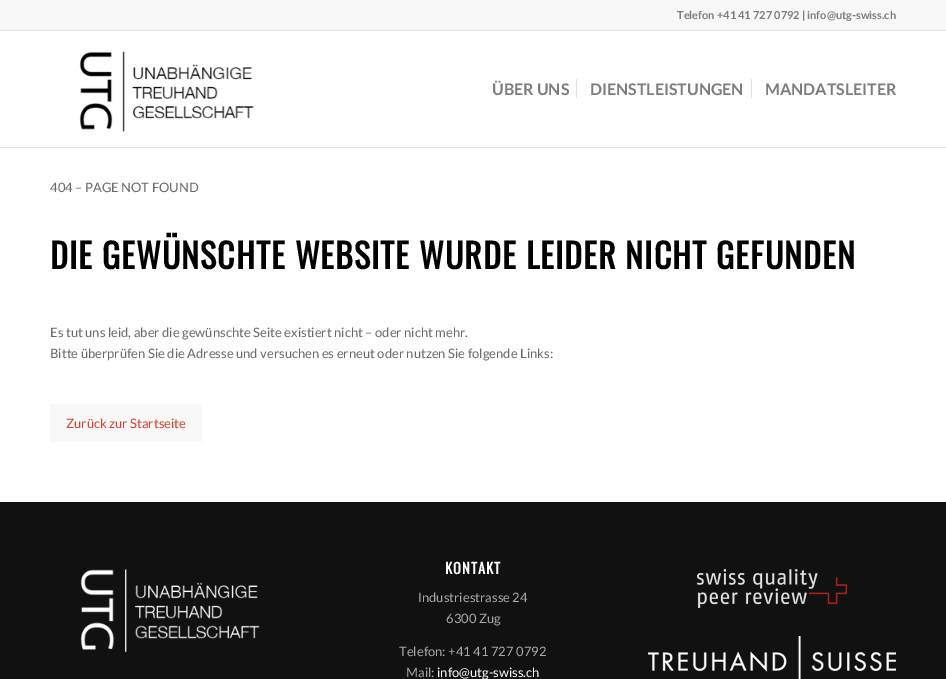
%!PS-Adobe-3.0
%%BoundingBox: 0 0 946 679
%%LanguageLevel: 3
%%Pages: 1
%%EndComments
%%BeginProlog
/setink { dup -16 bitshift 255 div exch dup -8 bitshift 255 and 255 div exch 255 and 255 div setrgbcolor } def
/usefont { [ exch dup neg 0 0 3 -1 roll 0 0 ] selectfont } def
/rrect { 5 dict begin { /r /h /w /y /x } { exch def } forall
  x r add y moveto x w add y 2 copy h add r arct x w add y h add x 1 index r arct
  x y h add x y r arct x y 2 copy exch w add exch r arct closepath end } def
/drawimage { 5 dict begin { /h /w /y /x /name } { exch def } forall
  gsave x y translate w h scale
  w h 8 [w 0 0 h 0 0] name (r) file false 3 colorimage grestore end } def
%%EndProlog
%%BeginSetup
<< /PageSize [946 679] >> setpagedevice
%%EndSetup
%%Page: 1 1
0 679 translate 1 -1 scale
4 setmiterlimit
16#FFFFFF setink
0 0 946 679 rectfill
16#F8F8F8 setink
0 0 946 30 rectfill
16#E1E1E1 setink
0 30 946 1 rectfill
/Lato-Bold 11 usefont
16#7D7D7D setink
677 19 moveto (Telefon +41 41 727 0792 | info@utg-swiss.ch) show
16#E1E1E1 setink
0 147 946 1 rectfill
(img1.raw) 79 51 175 81 drawimage
/Lato-Bold 16 usefont
16#7D7D7D setink
492 95 moveto (ÜBER UNS) show
590 95 moveto (DIENSTLEISTUNGEN) show
16#E1E1E1 setink
576 79 1 19 rectfill
16#7D7D7D setink
765 95 moveto (MANDATSLEITER) show
16#E1E1E1 setink
751 79 1 19 rectfill
/Lato-Regular 13 usefont
16#696969 setink
50 192 moveto (404 – PAGE NOT FOUND) show
/Oswald-Bold 34 usefont
16#000000 setink
50 269 moveto 1 0 (DIE GEWÜNSCHTE WEBSITE WURDE LEIDER NICHT GEFUNDEN) ashow
/Lato-Regular 13 usefont
16#696969 setink
50 337 moveto (Es tut uns leid, aber die gewünschte Seite existiert nicht – oder nicht mehr.) show
50 358 moveto (Bitte überprüfen Sie die Adresse und versuchen es erneut oder nutzen Sie folgende Links:) show
16#F8F8F8 setink
50 404 152 39 3 rrect fill
16#FFFFFF setink
52 442 149 1 rectfill
16#D63E2D setink
66 428 moveto (Zurück zur Startseite) show
16#111111 setink
0 502 946 177 rectfill
(img2.raw) 80 568 180 85 drawimage
/Oswald-Bold 14.5 usefont
16#FFFFFF setink
445 574 moveto 1 0 (KONTAKT) ashow
/Lato-Regular 13 usefont
16#AAAAAA setink
[
    [(Industriestrasse 24) 418 602]
    [(6300 Zug) 446 623]
    [(Telefon: +41 41 727 0792) 399 656]
    [(Mail:) 406 677]
] { aload pop moveto show } forall
16#FFFFFF setink
437 677 moveto (info@utg-swiss.ch) show
(img3.raw) 697 569 150 39 drawimage
(img4.raw) 648 636 248 43 drawimage
showpage
%%EOF
